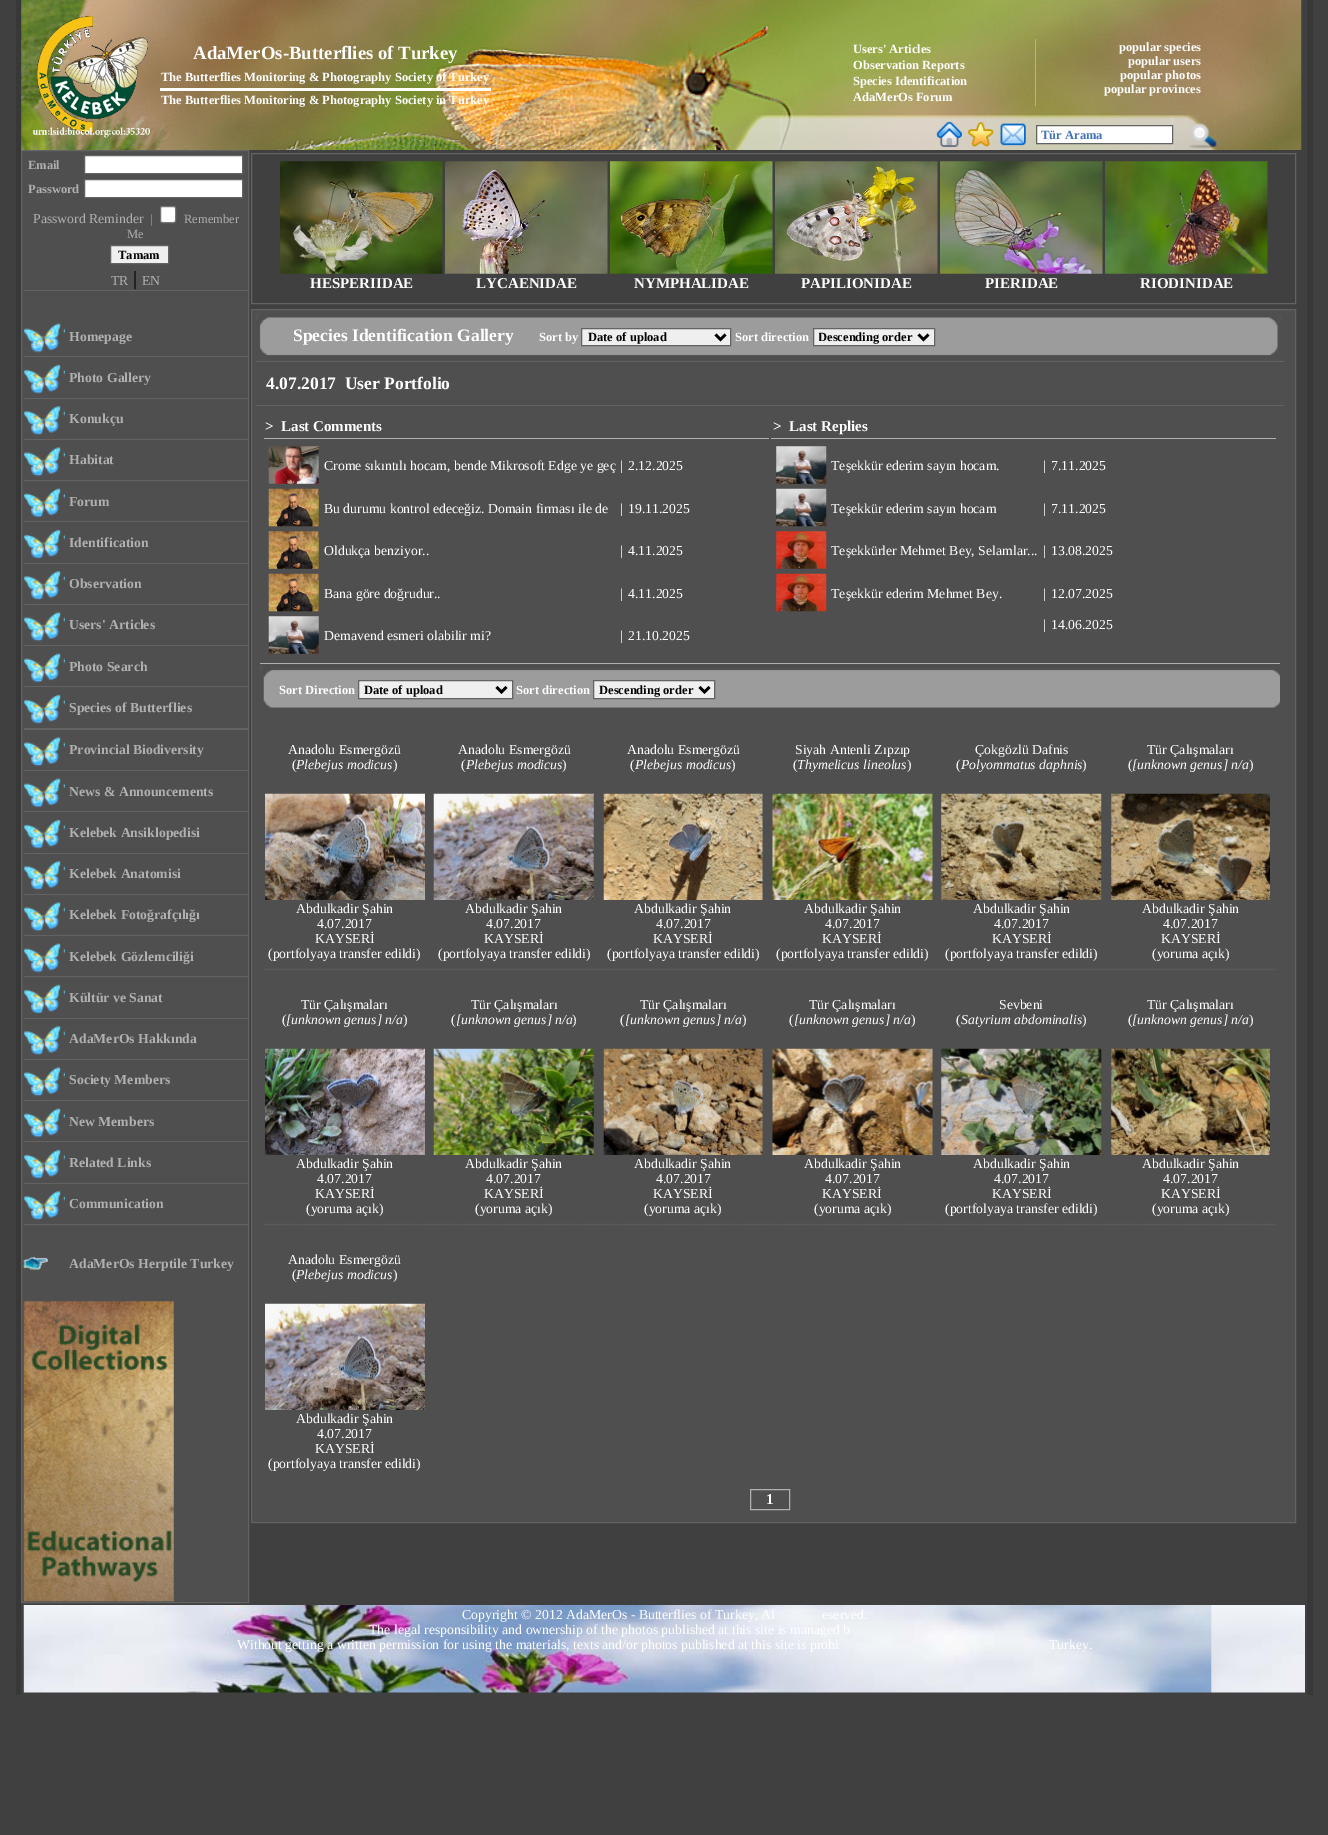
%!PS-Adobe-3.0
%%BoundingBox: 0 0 1328 1835
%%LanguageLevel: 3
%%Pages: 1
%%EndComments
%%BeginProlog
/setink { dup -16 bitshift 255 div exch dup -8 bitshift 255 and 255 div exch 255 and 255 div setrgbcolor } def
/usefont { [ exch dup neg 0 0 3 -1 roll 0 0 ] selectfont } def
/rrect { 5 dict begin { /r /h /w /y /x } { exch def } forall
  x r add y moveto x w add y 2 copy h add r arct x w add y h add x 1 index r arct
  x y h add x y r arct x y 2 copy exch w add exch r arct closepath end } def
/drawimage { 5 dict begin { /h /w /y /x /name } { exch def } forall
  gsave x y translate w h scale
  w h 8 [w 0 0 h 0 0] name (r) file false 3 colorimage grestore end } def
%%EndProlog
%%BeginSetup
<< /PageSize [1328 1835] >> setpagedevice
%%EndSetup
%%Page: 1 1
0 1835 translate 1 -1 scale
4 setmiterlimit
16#404040 setink
0 0 1328 1835 rectfill
16#383838 setink
16 0 5 1695 rectfill
(img1.raw) 21 0 1281 150 drawimage
(img2.raw) 32 16 118 122 drawimage
/LiberationSerif-Bold 18.75 usefont
16#FFFFFF setink
193 59 moveto (AdaMerOs-Butterflies of Turkey) show
/LiberationSerif-Bold 12.5 usefont
161 81 moveto (The Butterflies Monitoring & Photography Society of Turkey) show
160 88 331 3 rectfill
161 104 moveto (The Butterflies Monitoring & Photography Society in Turkey) show
16#B0B0B0 setink
1035 39 1 67 rectfill
16#FFFFFF setink
[
    [(Users' Articles) 853 53]
    [(Observation Reports) 853 69]
    [(Species Identification) 853 85]
    [(AdaMerOs Forum) 853 101]
    [(popular species) 1119 51]
    [(popular users) 1128 65]
    [(popular photos) 1120 79]
    [(popular provinces) 1104 93]
] { aload pop moveto show } forall
(img3.raw) 733 115 484 35 drawimage
(img4.raw) 936 121 26 26 drawimage
(img5.raw) 968 121 26 26 drawimage
(img6.raw) 1000 123 26 23 drawimage
1036.5 125.5 moveto 1172.5 125.5 lineto 1172.5 143.5 lineto 1036.5 143.5 lineto closepath gsave fill grestore
16#636363 setink
stroke
16#4474B5 setink
1041 139 moveto (Tür Arama) show
(img7.raw) 1189 122 29 27 drawimage
16#4F4F4F setink
21.5 150.5 moveto 248.5 150.5 lineto 248.5 1602.5 lineto 21.5 1602.5 lineto closepath gsave fill grestore
16#636363 setink
stroke
16#B0B0B0 setink
28 169 moveto (Email) show
16#FFFFFF setink
84.5 155.5 moveto 242.5 155.5 lineto 242.5 173.5 lineto 84.5 173.5 lineto closepath gsave fill grestore
16#636363 setink
stroke
16#B0B0B0 setink
28 193 moveto (Password) show
16#FFFFFF setink
84.5 179.5 moveto 242.5 179.5 lineto 242.5 197.5 lineto 84.5 197.5 lineto closepath gsave fill grestore
16#636363 setink
stroke
/LiberationSerif-Regular 13.75 usefont
16#B0B0B0 setink
33 223 moveto (Password Reminder) show
/LiberationSerif-Regular 12.5 usefont
150 223 moveto (|) show
16#FFFFFF setink
160.5 206.5 15 16 2 rrect gsave fill grestore
16#767676 setink
stroke
16#B0B0B0 setink
184 223 moveto (Remember) show
127 238 moveto (Me) show
16#EFEFEF setink
110.5 245.5 moveto 168.5 245.5 lineto 168.5 263.5 lineto 110.5 263.5 lineto closepath gsave fill grestore
16#636363 setink
stroke
/LiberationSerif-Bold 12.5 usefont
16#000000 setink
118 259 moveto (Tamam) show
/LiberationSerif-Regular 13.75 usefont
16#B0B0B0 setink
111 285 moveto (TR) show
/LiberationSerif-Regular 20 usefont
16#000000 setink
133 285 moveto (|) show
/LiberationSerif-Regular 13.75 usefont
16#B0B0B0 setink
142 285 moveto (EN) show
16#636363 setink
24 290 224 1 rectfill
(img8.raw) 23 323 42 30 drawimage
/LiberationSerif-Bold 13.75 usefont
16#B0B0B0 setink
69 341 moveto (Homepage) show
16#636363 setink
24 356 224 1 rectfill
(img9.raw) 23 364 42 30 drawimage
16#B0B0B0 setink
69 382 moveto (Photo Gallery) show
16#636363 setink
24 398 224 1 rectfill
(img10.raw) 23 406 42 30 drawimage
16#B0B0B0 setink
69 423 moveto (Konukçu) show
16#636363 setink
24 439 224 1 rectfill
(img11.raw) 23 447 42 30 drawimage
16#B0B0B0 setink
69 464 moveto (Habitat) show
16#636363 setink
24 480 224 1 rectfill
(img12.raw) 23 488 42 30 drawimage
16#B0B0B0 setink
69 506 moveto (Forum) show
16#636363 setink
24 521 224 1 rectfill
(img13.raw) 23 529 42 30 drawimage
16#B0B0B0 setink
69 547 moveto (Identification) show
16#636363 setink
24 563 224 1 rectfill
(img14.raw) 23 571 42 30 drawimage
16#B0B0B0 setink
69 588 moveto (Observation) show
16#636363 setink
24 604 224 1 rectfill
(img15.raw) 23 612 42 30 drawimage
16#B0B0B0 setink
69 629 moveto (Users' Articles) show
16#636363 setink
24 645 224 1 rectfill
(img16.raw) 23 653 42 30 drawimage
16#B0B0B0 setink
69 671 moveto (Photo Search) show
16#636363 setink
24 686 224 1 rectfill
(img17.raw) 23 694 42 30 drawimage
16#B0B0B0 setink
69 712 moveto (Species of Butterflies) show
16#636363 setink
24 728 224 2 rectfill
(img18.raw) 23 737 42 30 drawimage
16#B0B0B0 setink
69 754 moveto (Provincial Biodiversity) show
16#636363 setink
24 770 224 1 rectfill
(img19.raw) 23 778 42 30 drawimage
16#B0B0B0 setink
69 796 moveto (News & Announcements) show
16#636363 setink
24 811 224 1 rectfill
(img20.raw) 23 819 42 30 drawimage
16#B0B0B0 setink
69 837 moveto (Kelebek Ansiklopedisi) show
16#636363 setink
24 853 224 1 rectfill
(img21.raw) 23 861 42 30 drawimage
16#B0B0B0 setink
69 878 moveto (Kelebek Anatomisi) show
16#636363 setink
24 894 224 1 rectfill
(img22.raw) 23 902 42 30 drawimage
16#B0B0B0 setink
69 919 moveto (Kelebek Fotoğrafçılığı) show
16#636363 setink
24 935 224 1 rectfill
(img23.raw) 23 943 42 30 drawimage
16#B0B0B0 setink
69 961 moveto (Kelebek Gözlemciliği) show
16#636363 setink
24 976 224 1 rectfill
(img24.raw) 23 984 42 30 drawimage
16#B0B0B0 setink
69 1002 moveto (Kültür ve Sanat) show
16#636363 setink
24 1018 224 1 rectfill
(img25.raw) 23 1026 42 30 drawimage
16#B0B0B0 setink
69 1043 moveto (AdaMerOs Hakkında) show
16#636363 setink
24 1059 224 1 rectfill
(img26.raw) 23 1067 42 30 drawimage
16#B0B0B0 setink
69 1084 moveto (Society Members) show
16#636363 setink
24 1100 224 1 rectfill
(img27.raw) 23 1108 42 30 drawimage
16#B0B0B0 setink
69 1126 moveto (New Members) show
16#636363 setink
24 1141 224 1 rectfill
(img28.raw) 23 1149 42 30 drawimage
16#B0B0B0 setink
69 1167 moveto (Related Links) show
16#636363 setink
24 1183 224 1 rectfill
(img29.raw) 23 1191 42 30 drawimage
16#B0B0B0 setink
69 1208 moveto (Communication) show
16#636363 setink
24 1224 224 1 rectfill
(img30.raw) 23 1257 25 13 drawimage
16#B0B0B0 setink
69 1268 moveto (AdaMerOs Herptile Turkey) show
(img31.raw) 23 1301 151 301 drawimage
16#636363 setink
251.5 153.5 1044 150 rectstroke
(img32.raw) 280 161 163 113 drawimage
/LiberationSerif-Bold 15 usefont
16#FFFFFF setink
310 288 moveto (HESPERIIDAE) show
(img33.raw) 445 161 163 113 drawimage
476 288 moveto (LYCAENIDAE) show
(img34.raw) 610 161 163 113 drawimage
634 288 moveto (NYMPHALIDAE) show
(img35.raw) 775 161 163 113 drawimage
801 288 moveto (PAPILIONIDAE) show
(img36.raw) 940 161 163 113 drawimage
985 288 moveto (PIERIDAE) show
(img37.raw) 1105 161 163 113 drawimage
1140 288 moveto (RIODINIDAE) show
16#4F4F4F setink
251.5 309.5 moveto 1295.5 309.5 lineto 1295.5 1522.5 lineto 251.5 1522.5 lineto closepath gsave fill grestore
16#636363 setink
stroke
(img38.raw) 256 314 1025 42 drawimage
/LiberationSerif-Bold 17.5 usefont
16#FFFFFF setink
293 341 moveto (Species Identification Gallery) show
/LiberationSerif-Bold 12.5 usefont
539 341 moveto (Sort by) show
16#EFEFEF setink
581.5 328.5 moveto 730.5 328.5 lineto 730.5 345.5 lineto 581.5 345.5 lineto closepath gsave fill grestore
16#636363 setink
stroke
16#000000 setink
2.5 setlinewidth
715.5 334.5 moveto 720.5 339.5 lineto 725.5 334.5 lineto stroke
588 341 moveto (Date of upload) show
16#FFFFFF setink
735 341 moveto (Sort direction) show
16#EFEFEF setink
813.5 328.5 moveto 934.5 328.5 lineto 934.5 345.5 lineto 813.5 345.5 lineto closepath gsave fill grestore
16#636363 setink
1 setlinewidth
stroke
16#000000 setink
2.5 setlinewidth
918.5 334.5 moveto 923.5 339.5 lineto 928.5 334.5 lineto stroke
gsave
819 329 95 16 rectclip
818 341 moveto (Descending order) show
grestore
16#636363 setink
256 361 1028 1 rectfill
256 405 1028 1 rectfill
/LiberationSerif-Bold 17.5 usefont
16#FFFFFF setink
266 389 moveto (4.07.2017  User Portfolio) show
16#B0B0B0 setink
260 663 1020 1 rectfill
264 438 505 1 rectfill
/LiberationSerif-Bold 15 usefont
16#FFFFFF setink
265 431 moveto (>  Last Comments) show
16#B0B0B0 setink
771 438 505 1 rectfill
16#FFFFFF setink
773 431 moveto (>  Last Replies) show
(img39.raw) 268 446 51 38 drawimage
/LiberationSerif-Regular 13.75 usefont
[
    [(Crome sıkıntılı hocam, bende Mikrosoft Edge ye geç) 324 470]
    [(|) 620 470]
    [(2.12.2025) 628 470]
] { aload pop moveto show } forall
(img40.raw) 268 488 51 39 drawimage
[
    [(Bu durumu kontrol edeceğiz. Domain firması ile de) 324 513]
    [(|) 620 513]
    [(19.11.2025) 628 513]
] { aload pop moveto show } forall
(img41.raw) 268 531 51 38 drawimage
[
    [(Oldukça benziyor..) 324 555]
    [(|) 620 555]
    [(4.11.2025) 628 555]
] { aload pop moveto show } forall
(img42.raw) 268 573 51 39 drawimage
[
    [(Bana göre doğrudur..) 324 598]
    [(|) 620 598]
    [(4.11.2025) 628 598]
] { aload pop moveto show } forall
(img43.raw) 268 616 51 38 drawimage
[
    [(Demavend esmeri olabilir mi?) 324 640]
    [(|) 620 640]
    [(21.10.2025) 628 640]
] { aload pop moveto show } forall
(img44.raw) 776 446 51 38 drawimage
[
    [(Teşekkür ederim sayın hocam.) 831 470]
    [(|) 1043 470]
    [(7.11.2025) 1051 470]
] { aload pop moveto show } forall
(img45.raw) 776 488 51 39 drawimage
[
    [(Teşekkür ederim sayın hocam) 831 513]
    [(|) 1043 513]
    [(7.11.2025) 1051 513]
] { aload pop moveto show } forall
(img46.raw) 776 531 51 38 drawimage
[
    [(Teşekkürler Mehmet Bey, Selamlar...) 831 555]
    [(|) 1043 555]
    [(13.08.2025) 1051 555]
] { aload pop moveto show } forall
(img47.raw) 776 573 51 39 drawimage
[
    [(Teşekkür ederim Mehmet Bey.) 831 598]
    [(|) 1043 598]
    [(12.07.2025) 1051 598]
    [(|) 1043 629]
    [(14.06.2025) 1051 629]
] { aload pop moveto show } forall
(img48.raw) 260 666 1020 42 drawimage
/LiberationSerif-Bold 12.5 usefont
279 694 moveto (Sort Direction) show
16#EFEFEF setink
358.5 680.5 moveto 512.5 680.5 lineto 512.5 698.5 lineto 358.5 698.5 lineto closepath gsave fill grestore
16#636363 setink
1 setlinewidth
stroke
16#000000 setink
2.5 setlinewidth
496.5 687 moveto 501.5 692 lineto 506.5 687 lineto stroke
364 694 moveto (Date of upload) show
16#FFFFFF setink
516 694 moveto (Sort direction) show
16#EFEFEF setink
593.5 680.5 moveto 714.5 680.5 lineto 714.5 698.5 lineto 593.5 698.5 lineto closepath gsave fill grestore
16#636363 setink
1 setlinewidth
stroke
16#000000 setink
2.5 setlinewidth
699.5 687 moveto 704.5 692 lineto 709.5 687 lineto stroke
599 694 moveto (Descending order) show
/LiberationSerif-Regular 13.75 usefont
16#FFFFFF setink
288 754 moveto (Anadolu Esmergözü) show
292 769 moveto (\() show
/LiberationSerif-Italic 13.75 usefont
296 769 moveto (Plebejus modicus) show
/LiberationSerif-Regular 13.75 usefont
393 769 moveto (\)) show
(img49.raw) 265 793 160 107 drawimage
[
    [(Abdulkadir Şahin) 296 913]
    [(4.07.2017) 317 928]
    [(KAYSERİ) 315 943]
    [(\(portfolyaya transfer edildi\)) 268 958]
    [(Anadolu Esmergözü) 458 754]
    [(\() 461 769]
] { aload pop moveto show } forall
/LiberationSerif-Italic 13.75 usefont
466 769 moveto (Plebejus modicus) show
/LiberationSerif-Regular 13.75 usefont
562 769 moveto (\)) show
(img50.raw) 433 793 161 107 drawimage
[
    [(Abdulkadir Şahin) 465 913]
    [(4.07.2017) 486 928]
    [(KAYSERİ) 484 943]
    [(\(portfolyaya transfer edildi\)) 438 958]
    [(Anadolu Esmergözü) 627 754]
    [(\() 630 769]
] { aload pop moveto show } forall
/LiberationSerif-Italic 13.75 usefont
635 769 moveto (Plebejus modicus) show
/LiberationSerif-Regular 13.75 usefont
731 769 moveto (\)) show
(img51.raw) 603 793 160 107 drawimage
[
    [(Abdulkadir Şahin) 634 913]
    [(4.07.2017) 656 928]
    [(KAYSERİ) 653 943]
    [(\(portfolyaya transfer edildi\)) 607 958]
    [(Siyah Antenli Zıpzıp) 795 754]
    [(\() 793 769]
] { aload pop moveto show } forall
/LiberationSerif-Italic 13.75 usefont
797 769 moveto (Thymelicus lineolus) show
/LiberationSerif-Regular 13.75 usefont
907 769 moveto (\)) show
(img52.raw) 772 793 161 107 drawimage
[
    [(Abdulkadir Şahin) 804 913]
    [(4.07.2017) 825 928]
    [(KAYSERİ) 822 943]
    [(\(portfolyaya transfer edildi\)) 776 958]
    [(Çokgözlü Dafnis) 975 754]
    [(\() 956 769]
] { aload pop moveto show } forall
/LiberationSerif-Italic 13.75 usefont
961 769 moveto (Polyommatus daphnis) show
/LiberationSerif-Regular 13.75 usefont
1082 769 moveto (\)) show
(img53.raw) 941 793 161 107 drawimage
[
    [(Abdulkadir Şahin) 973 913]
    [(4.07.2017) 994 928]
    [(KAYSERİ) 992 943]
    [(\(portfolyaya transfer edildi\)) 945 958]
    [(Tür Çalışmaları) 1147 754]
    [(\() 1128 769]
] { aload pop moveto show } forall
/LiberationSerif-Italic 13.75 usefont
1132 769 moveto ([unknown genus] n/a) show
/LiberationSerif-Regular 13.75 usefont
1249 769 moveto (\)) show
(img54.raw) 1111 793 159 107 drawimage
[
    [(Abdulkadir Şahin) 1142 913]
    [(4.07.2017) 1163 928]
    [(KAYSERİ) 1161 943]
    [(\(yoruma açık\)) 1152 958]
] { aload pop moveto show } forall
16#636363 setink
1.2 setlinewidth
[1.25 1.25] 0 setdash
264 969.5 moveto 1276 969.5 lineto stroke
16#FFFFFF setink
301 1009 moveto (Tür Çalışmaları) show
282 1024 moveto (\() show
/LiberationSerif-Italic 13.75 usefont
286 1024 moveto ([unknown genus] n/a) show
/LiberationSerif-Regular 13.75 usefont
403 1024 moveto (\)) show
(img55.raw) 265 1048 160 107 drawimage
[
    [(Abdulkadir Şahin) 296 1168]
    [(4.07.2017) 317 1183]
    [(KAYSERİ) 315 1198]
    [(\(yoruma açık\)) 306 1213]
    [(Tür Çalışmaları) 471 1009]
    [(\() 451 1024]
] { aload pop moveto show } forall
/LiberationSerif-Italic 13.75 usefont
456 1024 moveto ([unknown genus] n/a) show
/LiberationSerif-Regular 13.75 usefont
572 1024 moveto (\)) show
(img56.raw) 433 1048 161 107 drawimage
[
    [(Abdulkadir Şahin) 465 1168]
    [(4.07.2017) 486 1183]
    [(KAYSERİ) 484 1198]
    [(\(yoruma açık\)) 475 1213]
    [(Tür Çalışmaları) 640 1009]
    [(\() 620 1024]
] { aload pop moveto show } forall
/LiberationSerif-Italic 13.75 usefont
625 1024 moveto ([unknown genus] n/a) show
/LiberationSerif-Regular 13.75 usefont
742 1024 moveto (\)) show
(img57.raw) 603 1048 160 107 drawimage
[
    [(Abdulkadir Şahin) 634 1168]
    [(4.07.2017) 656 1183]
    [(KAYSERİ) 653 1198]
    [(\(yoruma açık\)) 644 1213]
    [(Tür Çalışmaları) 809 1009]
    [(\() 789 1024]
] { aload pop moveto show } forall
/LiberationSerif-Italic 13.75 usefont
794 1024 moveto ([unknown genus] n/a) show
/LiberationSerif-Regular 13.75 usefont
911 1024 moveto (\)) show
(img58.raw) 772 1048 161 107 drawimage
[
    [(Abdulkadir Şahin) 804 1168]
    [(4.07.2017) 825 1183]
    [(KAYSERİ) 822 1198]
    [(\(yoruma açık\)) 814 1213]
    [(Sevbeni) 999 1009]
    [(\() 956 1024]
] { aload pop moveto show } forall
/LiberationSerif-Italic 13.75 usefont
961 1024 moveto (Satyrium abdominalis) show
/LiberationSerif-Regular 13.75 usefont
1082 1024 moveto (\)) show
(img59.raw) 941 1048 161 107 drawimage
[
    [(Abdulkadir Şahin) 973 1168]
    [(4.07.2017) 994 1183]
    [(KAYSERİ) 992 1198]
    [(\(portfolyaya transfer edildi\)) 945 1213]
    [(Tür Çalışmaları) 1147 1009]
    [(\() 1128 1024]
] { aload pop moveto show } forall
/LiberationSerif-Italic 13.75 usefont
1132 1024 moveto ([unknown genus] n/a) show
/LiberationSerif-Regular 13.75 usefont
1249 1024 moveto (\)) show
(img60.raw) 1111 1048 159 107 drawimage
[
    [(Abdulkadir Şahin) 1142 1168]
    [(4.07.2017) 1163 1183]
    [(KAYSERİ) 1161 1198]
    [(\(yoruma açık\)) 1152 1213]
] { aload pop moveto show } forall
16#636363 setink
264 1224.5 moveto 1276 1224.5 lineto stroke
16#FFFFFF setink
288 1264 moveto (Anadolu Esmergözü) show
292 1279 moveto (\() show
/LiberationSerif-Italic 13.75 usefont
296 1279 moveto (Plebejus modicus) show
/LiberationSerif-Regular 13.75 usefont
393 1279 moveto (\)) show
(img61.raw) 265 1303 160 107 drawimage
[
    [(Abdulkadir Şahin) 296 1423]
    [(4.07.2017) 317 1438]
    [(KAYSERİ) 315 1453]
    [(\(portfolyaya transfer edildi\)) 268 1468]
] { aload pop moveto show } forall
16#B0B0B0 setink
1 setlinewidth
[] 0 setdash
750.5 1489.5 39 20 rectstroke
/LiberationSerif-Bold 15 usefont
16#FFFFFF setink
766 1504 moveto (1) show
(img62.raw) 23 1605 1282 88 drawimage
/LiberationSerif-Regular 13.75 usefont
[
    [(Copyright © 2012 AdaMerOs - Butterflies of Turkey, Al) 462 1619]
    [(eserved.) 822 1619]
    [(The legal responsibility and ownership of the photos published at this site is managed b) 369 1634]
    [(Without getting a written permission for using the materials, texts and/or photos published at this site is prohi) 237 1649]
    [(Turkey.) 1049 1649]
] { aload pop moveto show } forall
16#383838 setink
1307 0 6 1695 rectfill
showpage
%%EOF
